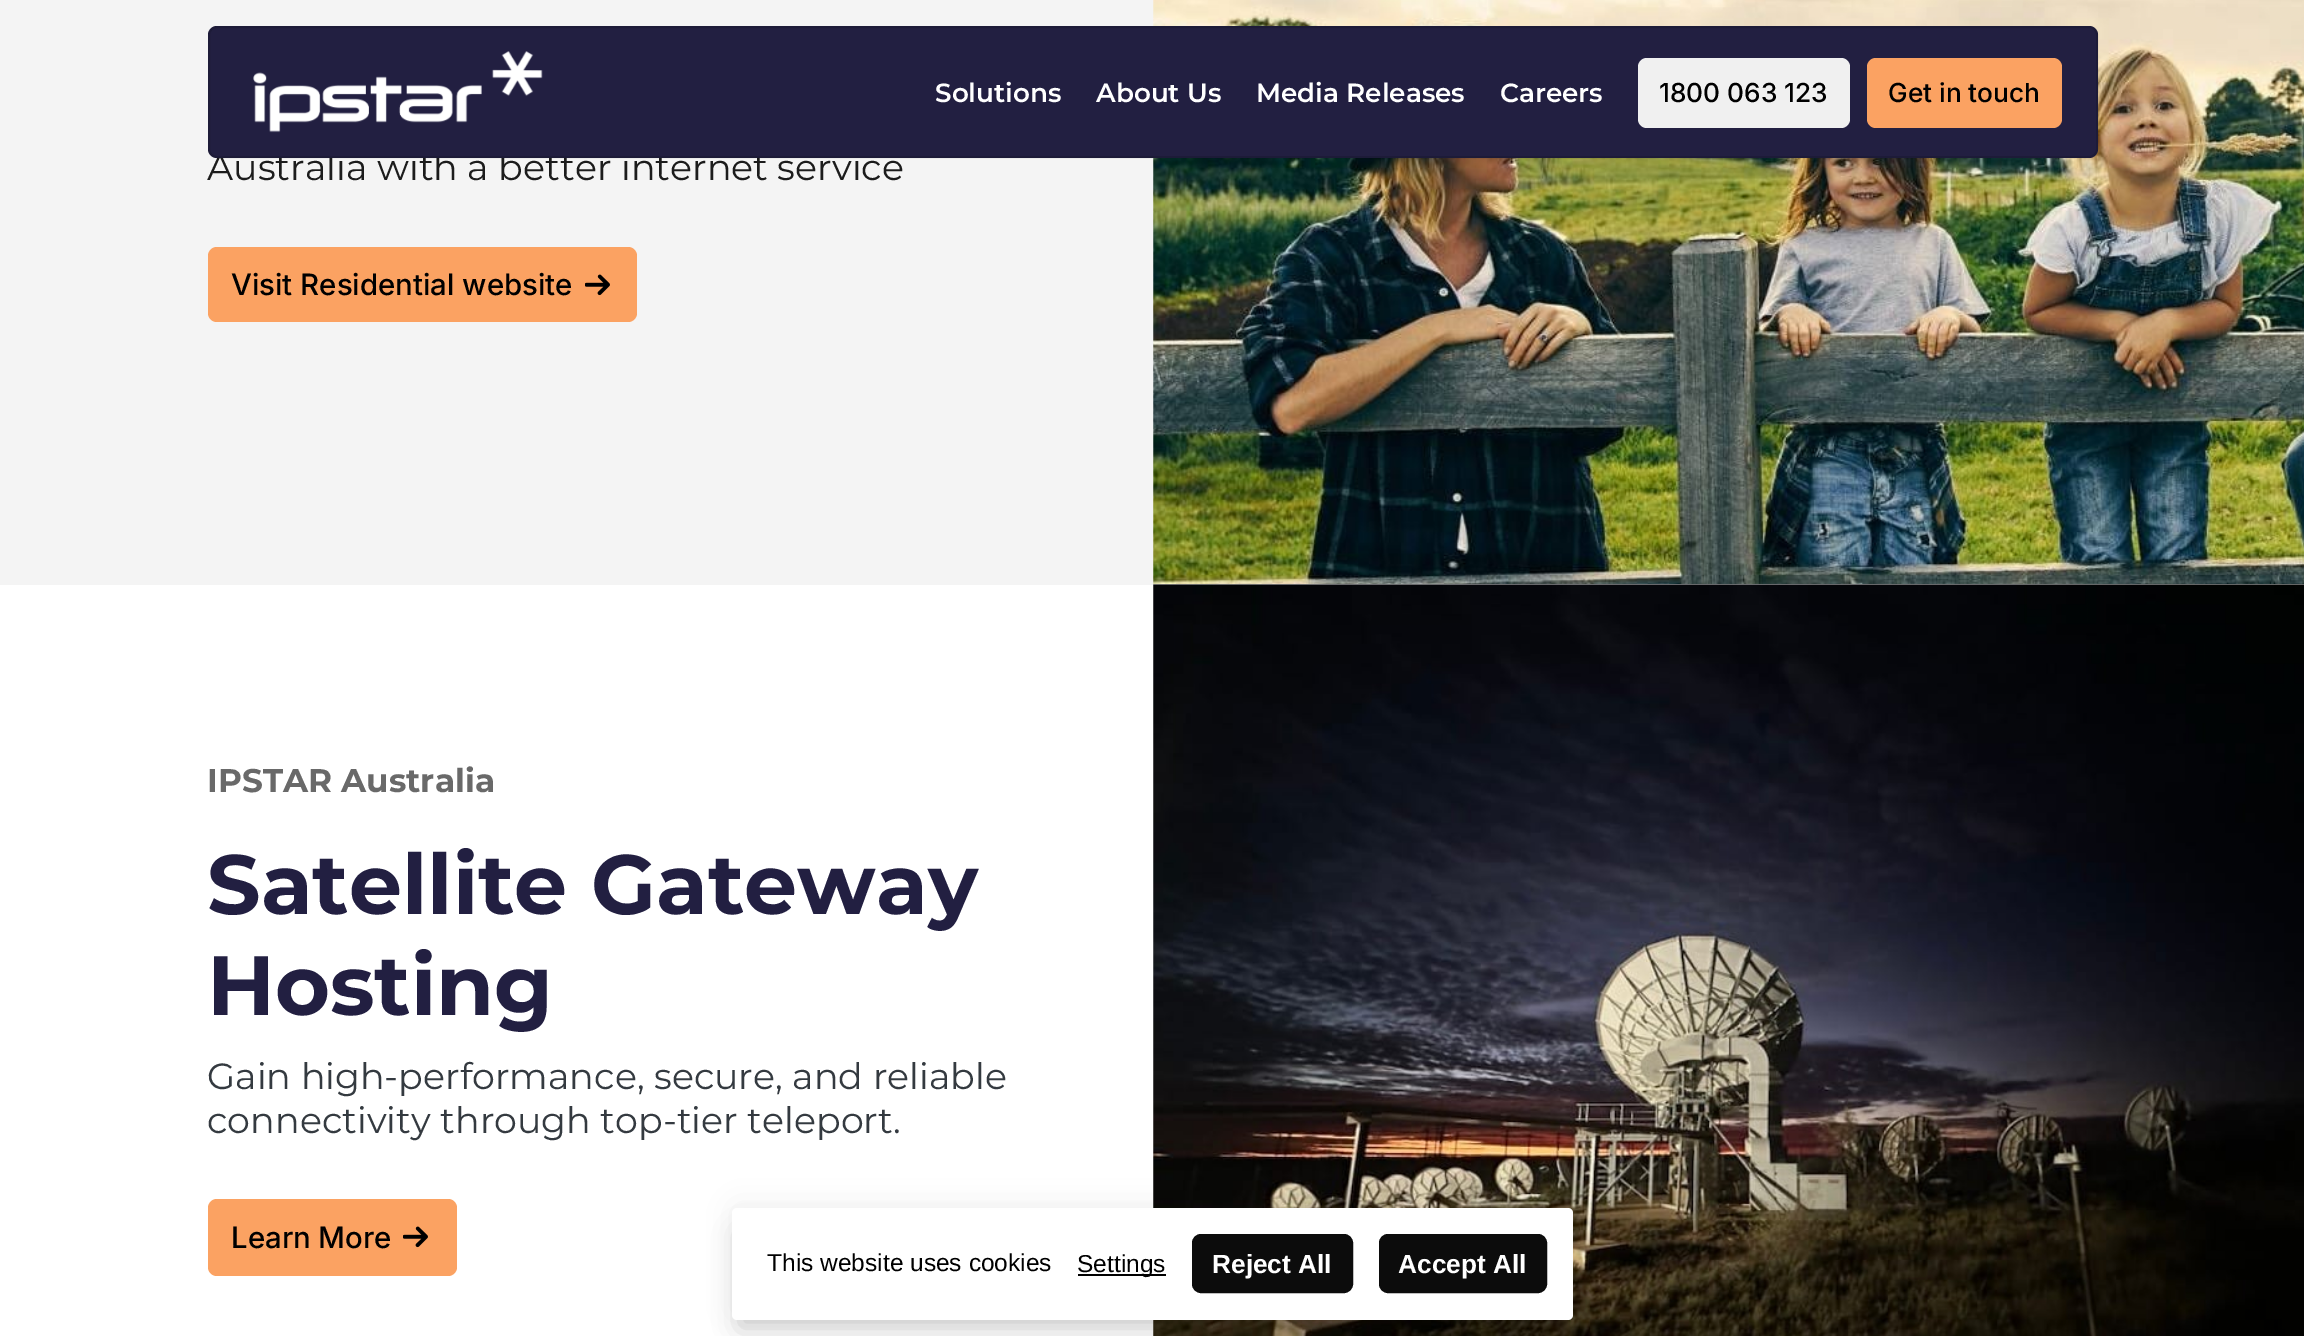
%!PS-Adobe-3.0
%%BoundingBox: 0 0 2304 1336
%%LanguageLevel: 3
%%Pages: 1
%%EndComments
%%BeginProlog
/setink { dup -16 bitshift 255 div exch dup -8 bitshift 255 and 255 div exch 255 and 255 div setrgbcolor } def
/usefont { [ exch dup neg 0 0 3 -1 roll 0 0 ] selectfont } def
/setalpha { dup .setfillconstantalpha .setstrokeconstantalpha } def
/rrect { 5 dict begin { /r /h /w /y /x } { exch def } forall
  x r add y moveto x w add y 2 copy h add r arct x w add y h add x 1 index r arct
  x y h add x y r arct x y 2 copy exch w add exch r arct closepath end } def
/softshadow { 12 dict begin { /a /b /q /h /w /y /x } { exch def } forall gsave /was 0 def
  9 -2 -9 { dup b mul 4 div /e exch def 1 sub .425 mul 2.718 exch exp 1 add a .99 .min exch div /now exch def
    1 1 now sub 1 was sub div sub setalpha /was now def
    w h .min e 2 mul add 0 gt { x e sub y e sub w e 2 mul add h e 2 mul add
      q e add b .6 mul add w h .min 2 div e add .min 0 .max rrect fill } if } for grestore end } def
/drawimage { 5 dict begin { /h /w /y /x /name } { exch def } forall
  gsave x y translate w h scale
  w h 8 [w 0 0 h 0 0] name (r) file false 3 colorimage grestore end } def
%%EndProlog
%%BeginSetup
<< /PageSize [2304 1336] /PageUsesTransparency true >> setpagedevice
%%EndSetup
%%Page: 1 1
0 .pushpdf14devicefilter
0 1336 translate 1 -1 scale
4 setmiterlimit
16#FFFFFF setink
0 0 2304 1336 rectfill
16#F4F4F4 setink
0 0 2304 585 rectfill
/Montserrat-Regular 36.4 usefont
16#1C1C1C setink
207 180 moveto (Australia with a better internet service) show
(img3.raw) 1153 0 1151 585 drawimage
16#221F41 setink
208 26 1890 132 9 rrect fill
0.14 setalpha
16#000000 setink
2 setlinewidth
209 27 1888 130 8 rrect stroke
1 setalpha
(img1.raw) 253 51 290 82 drawimage
/Montserrat-SemiBold 26.25 usefont
16#FFFFFF setink
[
    [(Solutions) 935 102]
    [(About Us) 1096 102]
    [(Media Releases) 1256 102]
    [(Careers) 1500 102]
] { aload pop moveto show } forall
16#F0F0F0 setink
1638 58 212 70 9 rrect fill
/Inter-Medium 26.25 usefont
16#000000 setink
1659 102 moveto (1800 063 123) show
16#FBA262 setink
1867 58 195 70 9 rrect fill
16#000000 setink
1888 102 moveto (Get in touch) show
16#FBA262 setink
208 247 429 75 9 rrect fill
/Inter-Medium 29.4 usefont
16#000000 setink
231 295 moveto (Visit Residential website) show
(img2.raw) 585 274 25 22 drawimage
/Montserrat-Bold 32.75 usefont
16#696969 setink
207 792 moveto (IPSTAR Australia) show
/Montserrat-Bold 84 usefont
16#221F41 setink
207 914 moveto (Satellite Gateway) show
207 1015 moveto (Hosting) show
/Montserrat-Regular 36.4 usefont
16#343A40 setink
207 1089 moveto (Gain high-performance, secure, and reliable) show
207 1133 moveto (connectivity through top-tier teleport.) show
16#FBA262 setink
208 1199 249 77 9 rrect fill
/Inter-Medium 29.4 usefont
16#000000 setink
231 1248 moveto (Learn More) show
(img2.raw) 403 1226 25 22 drawimage
(img4.raw) 1153 584 1151 752 drawimage
732 1204 841 112 5 15 0.06 softshadow
740 1232 825 95 0 13 0.2 softshadow
16#FFFFFF setink
732 1208 841 112 5 rrect fill
/LiberationSans-Regular 24.5 usefont
16#000000 setink
767 1271 moveto (This website uses cookies) show
1078 1274 88 2 rectfill
1077 1272 moveto (Settings) show
16#0C0C0C setink
1193 1235 159 57 8 rrect gsave fill grestore
stroke
/LiberationSans-Bold 26.25 usefont
16#FFFFFF setink
1212 1273 moveto (Reject All) show
16#0C0C0C setink
1380 1235 166 57 8 rrect gsave fill grestore
stroke
16#FFFFFF setink
1398 1273 moveto (Accept All) show
.poppdf14devicefilter showpage
%%EOF
